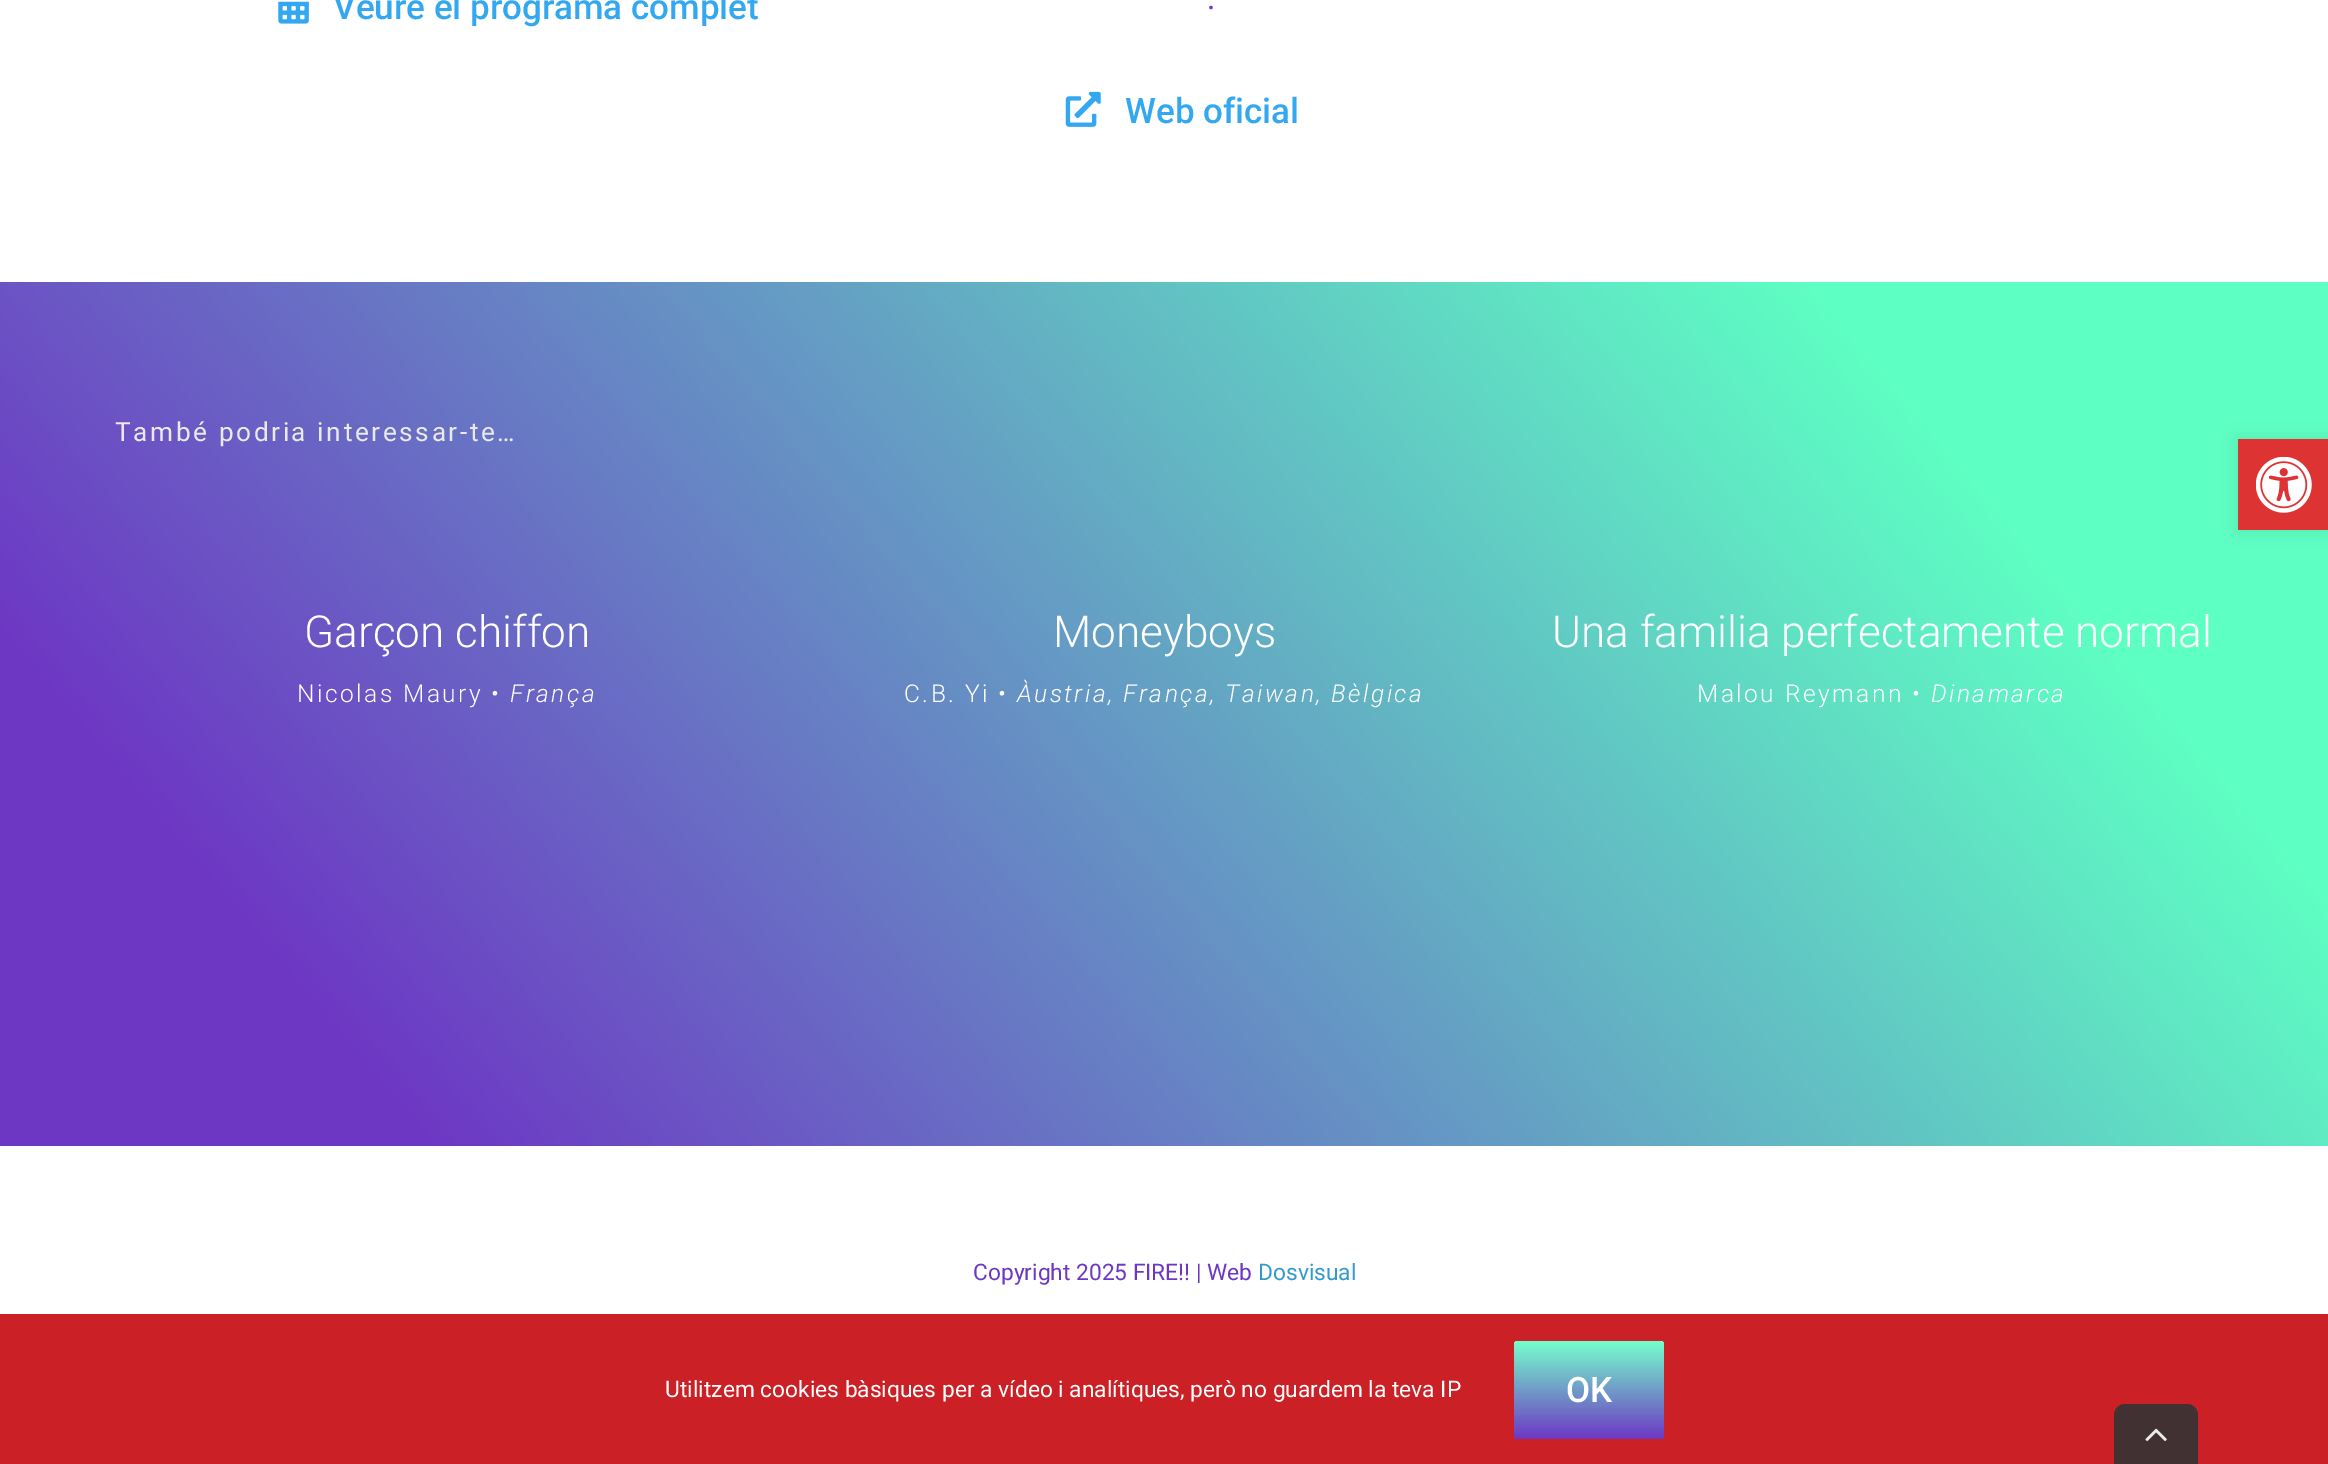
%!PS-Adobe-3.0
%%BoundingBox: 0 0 2328 1464
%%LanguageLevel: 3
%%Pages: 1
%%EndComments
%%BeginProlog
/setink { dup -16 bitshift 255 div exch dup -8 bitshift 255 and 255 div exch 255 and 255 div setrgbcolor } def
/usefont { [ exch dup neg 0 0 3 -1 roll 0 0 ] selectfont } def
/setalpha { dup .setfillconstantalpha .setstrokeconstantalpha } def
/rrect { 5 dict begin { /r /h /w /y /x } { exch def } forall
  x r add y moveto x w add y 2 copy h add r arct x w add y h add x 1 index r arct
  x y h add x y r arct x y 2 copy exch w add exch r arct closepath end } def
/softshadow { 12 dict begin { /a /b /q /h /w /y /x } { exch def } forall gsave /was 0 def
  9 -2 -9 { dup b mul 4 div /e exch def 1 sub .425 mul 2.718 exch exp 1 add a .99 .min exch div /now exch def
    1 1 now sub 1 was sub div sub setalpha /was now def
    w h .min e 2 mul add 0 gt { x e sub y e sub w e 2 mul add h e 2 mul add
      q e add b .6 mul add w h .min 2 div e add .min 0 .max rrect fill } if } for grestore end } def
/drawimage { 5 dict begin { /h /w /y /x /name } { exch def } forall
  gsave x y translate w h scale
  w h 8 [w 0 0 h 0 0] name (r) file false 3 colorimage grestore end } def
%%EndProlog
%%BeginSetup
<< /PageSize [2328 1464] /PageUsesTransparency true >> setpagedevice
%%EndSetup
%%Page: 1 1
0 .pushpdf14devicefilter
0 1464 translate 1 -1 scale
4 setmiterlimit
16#FFFFFF setink
0 0 2328 1464 rectfill
(img1.raw) 278 1 31 23 drawimage
/Roboto-Medium 35 usefont
16#33A8F0 setink
333 19 moveto (Veure el programa complet) show
/Roboto-Regular 32 usefont
16#6D37C3 setink
1207 9 moveto (.) show
(img2.raw) 1065 91 36 36 drawimage
/Roboto-Medium 35 usefont
16#33A8F0 setink
1125 123 moveto (Web oficial) show
gsave 0 282 moveto 2328 282 lineto 2328 1146 lineto 0 1146 lineto closepath clip newpath
<< /ShadingType 2 /ColorSpace /DeviceRGB /Coords [2061 -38 268 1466] /Extend [true true] /Function << /FunctionType 3 /Domain [0 1] /Functions [<< /FunctionType 2 /Domain [0 1] /C0 [0.369 1 0.765] /C1 [0.369 1 0.765] /N 1 >> << /FunctionType 2 /Domain [0 1] /C0 [0.369 1 0.765] /C1 [0.427 0.216 0.769] /N 1 >> << /FunctionType 2 /Domain [0 1] /C0 [0.427 0.216 0.769] /C1 [0.427 0.216 0.769] /N 1 >>] /Bounds [0.17 0.86] /Encode [0 1 0 1 0 1] >> >> shfill grestore
/Roboto-Regular 26.25 usefont
16#EAEAEA setink
115 441 moveto 2.6 0 (També podria interessar-te…) ashow
/Roboto-Light 44.1 usefont
16#FFFFFF setink
304 647 moveto (Garçon chiffon) show
/Roboto-Light 24.5 usefont
297 702 moveto 2.45 0 (Nicolas Maury •) ashow
/Roboto-LightItalic 24.5 usefont
510 702 moveto 2.45 0 (França) ashow
/Roboto-Light 44.1 usefont
1053 647 moveto (Moneyboys) show
/Roboto-Light 24.5 usefont
904 702 moveto 2.45 0 (C.B. Yi •) ashow
/Roboto-LightItalic 24.5 usefont
1017 702 moveto 2.45 0 (Àustria, França, Taiwan, Bèlgica) ashow
/Roboto-Light 44.1 usefont
1552 647 moveto (Una familia perfectamente normal) show
/Roboto-Light 24.5 usefont
1697 702 moveto 2.45 0 (Malou Reymann •) ashow
/Roboto-LightItalic 24.5 usefont
1931 702 moveto 2.45 0 (Dinamarca) ashow
/Roboto-Regular 22.75 usefont
16#6D37C3 setink
973 1280 moveto (Copyright 2025 FIRE!! | Web) show
16#3399CC setink
1258 1280 moveto (Dosvisual) show
16#000000 setink
2238 439 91 91 0 9 0.1 softshadow
16#DD3333 setink
2238 439 90 91 rectfill
(img3.raw) 2256 457 56 56 drawimage
16#CB2026 setink
0 1314 2328 150 rectfill
16#FFFFFF setink
665 1397 moveto (Utilitzem cookies bàsiques per a vídeo i analítiques, però no guardem la teva IP) show
gsave 1514 1341 150 98 4 rrect clip newpath
<< /ShadingType 2 /ColorSpace /DeviceRGB /Coords [1589 1341 1589 1439] /Extend [true true] /Function << /FunctionType 2 /Domain [0 1] /C0 [0.459 1 0.8] /C1 [0.427 0.216 0.769] /N 1 >> >> shfill grestore
/Roboto-Medium 35 usefont
1566 1402 moveto (OK) show
16#423132 setink
2125 1404 moveto 2187 1404 lineto 2193 1404 2198 1409 2198 1415 curveto 2198 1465 lineto 2114 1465 lineto 2114 1415 lineto 2114 1409 2119 1404 2125 1404 curveto closepath fill
(img4.raw) 2145 1428 22 14 drawimage
.poppdf14devicefilter showpage
%%EOF
